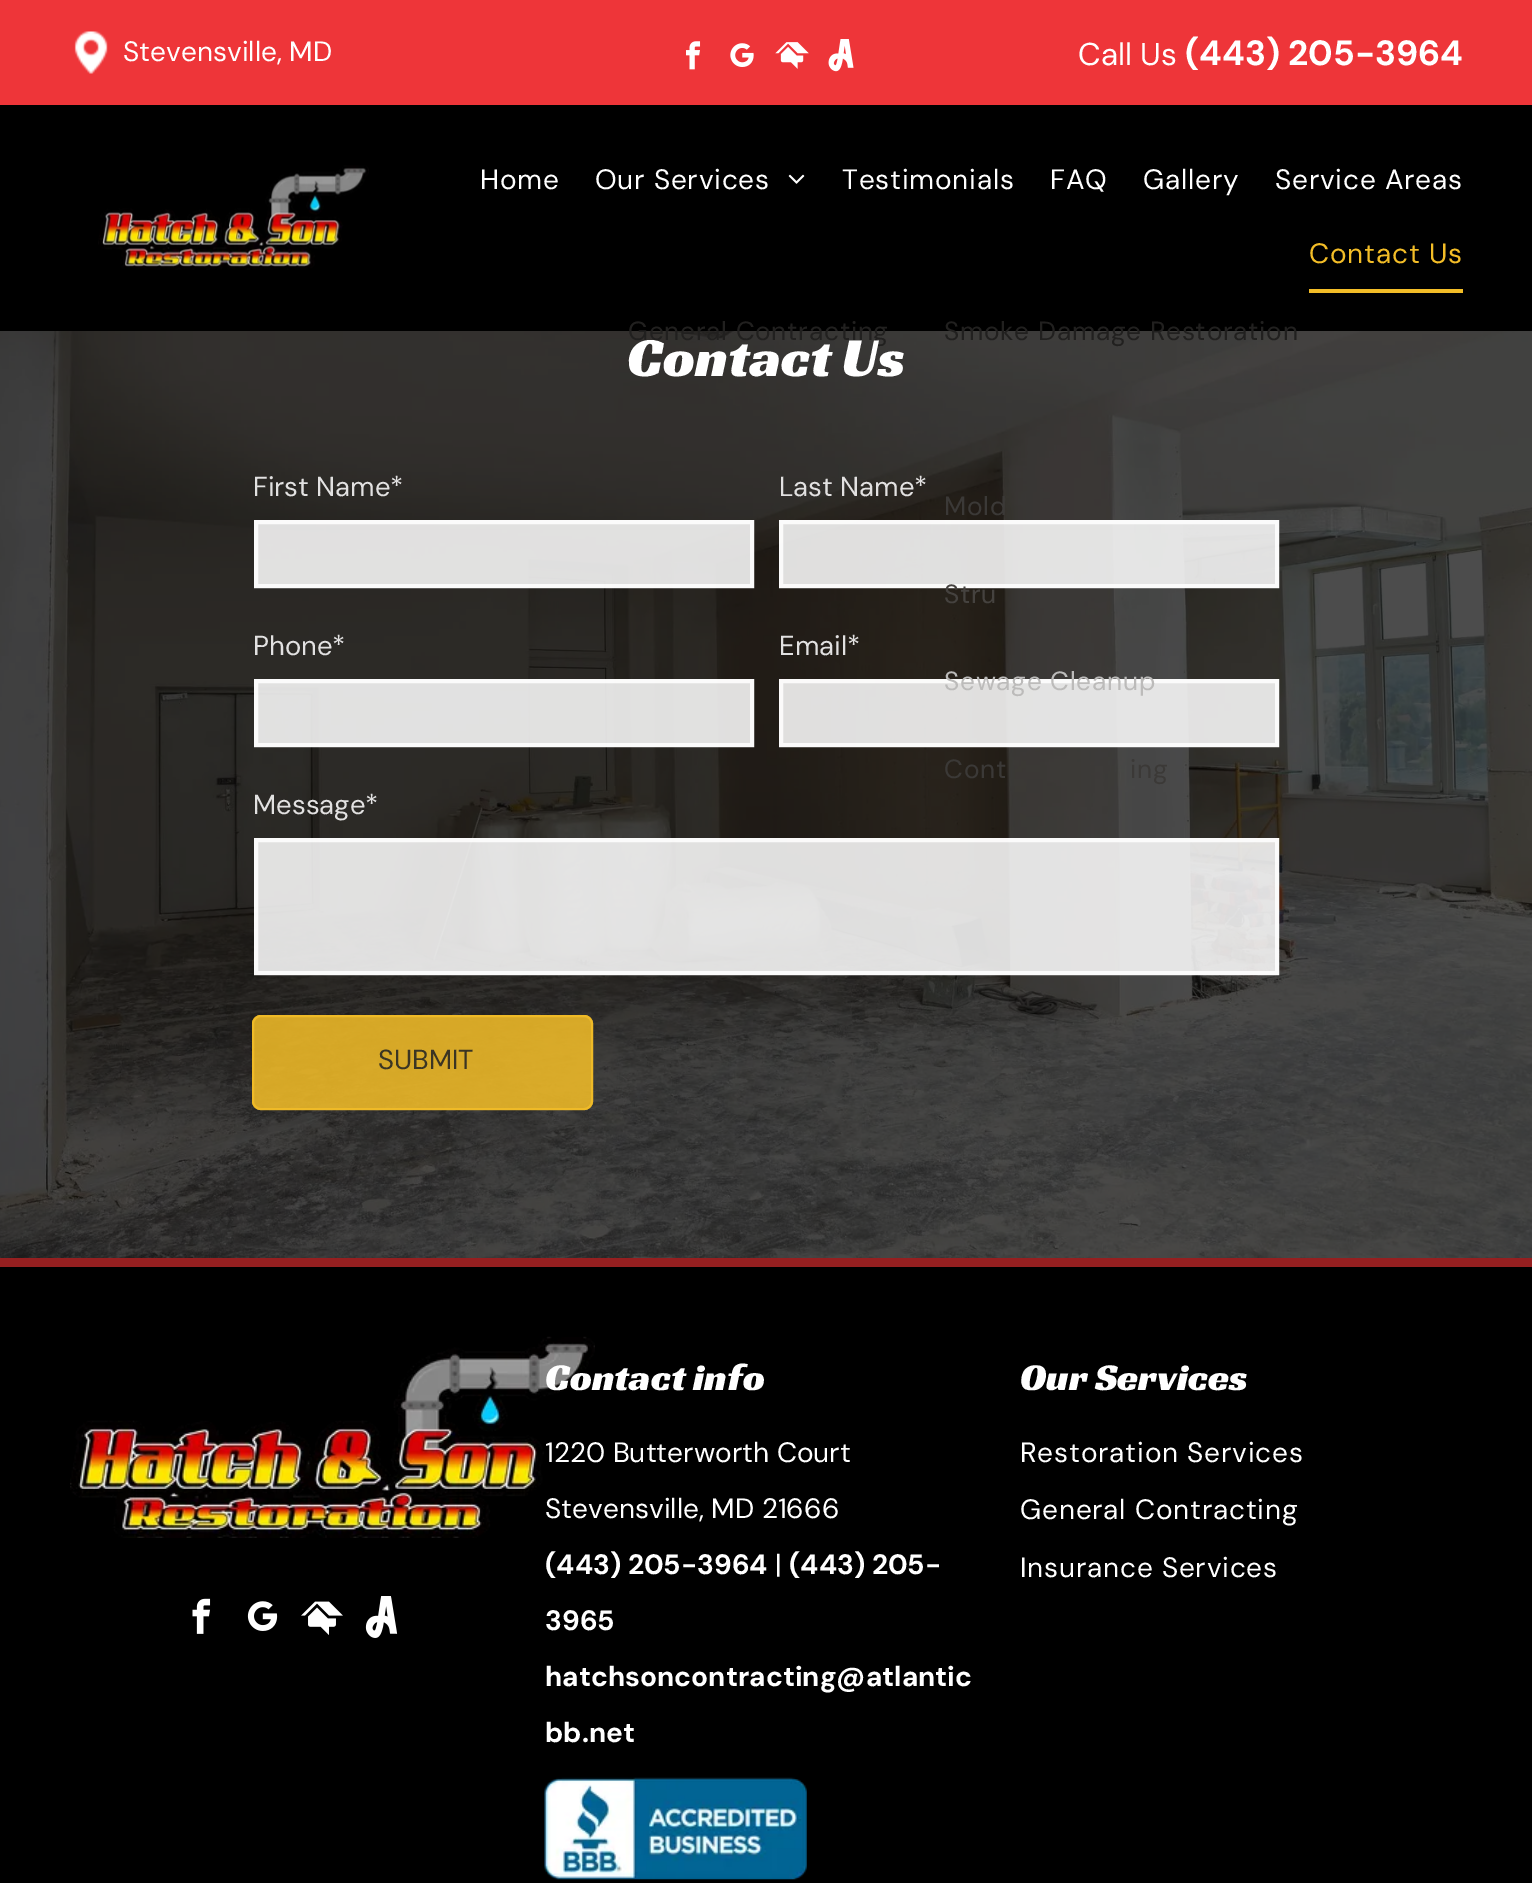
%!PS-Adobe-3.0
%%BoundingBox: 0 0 1532 1883
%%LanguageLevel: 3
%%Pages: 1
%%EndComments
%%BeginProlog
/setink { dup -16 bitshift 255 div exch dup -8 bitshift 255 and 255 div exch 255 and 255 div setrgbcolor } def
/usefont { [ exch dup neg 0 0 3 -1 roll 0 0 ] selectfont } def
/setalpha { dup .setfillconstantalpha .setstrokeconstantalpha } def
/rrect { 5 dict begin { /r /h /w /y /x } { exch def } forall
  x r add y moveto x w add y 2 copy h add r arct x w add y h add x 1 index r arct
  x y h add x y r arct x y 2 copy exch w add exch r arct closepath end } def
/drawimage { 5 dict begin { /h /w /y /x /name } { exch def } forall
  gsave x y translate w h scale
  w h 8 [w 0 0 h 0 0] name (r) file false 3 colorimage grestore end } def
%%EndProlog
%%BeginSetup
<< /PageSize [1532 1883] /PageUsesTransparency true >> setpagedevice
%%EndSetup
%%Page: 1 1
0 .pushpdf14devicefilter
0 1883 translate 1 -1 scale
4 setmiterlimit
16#FFFFFF setink
0 0 1532 1883 rectfill
16#EE3539 setink
0 0 1532 105 rectfill
(img1.raw) 74 31 34 43 drawimage
/DMSans-Regular 28 usefont
16#FFFFFF setink
123 61 moveto (Stevensville, MD) show
(img2.raw) 686 41 15 29 drawimage
(img3.raw) 730 43 24 24 drawimage
(img4.raw) 775 42 34 27 drawimage
(img5.raw) 828 39 26 33 drawimage
/DMSans-Regular 31.5 usefont
1078 65 moveto (Call Us) show
/DMSans-Bold 35 usefont
1185 65 moveto (\(443\) 205-3964) show
16#000000 setink
0 105 1532 226 rectfill
(img6.raw) 98 165 271 105 drawimage
/DMSans-Regular 28 usefont
16#FFFFFF setink
595 189 moveto 0.8 0 (Our Services) ashow
(img7.raw) 788 174 17 10 drawimage
(img8.raw) 0 331 1532 927 drawimage
/DMSans-Regular 26.25 usefont
16#21201F setink
628 340 moveto 0.75 0 (General Contracting) ashow
944 340 moveto 0.75 0 (Smoke Damage Restoration) ashow
16#3B3937 setink
944 515 moveto 0.75 0 (Mold) ashow
0.86 setalpha
16#FFFFFF setink
779 520 500 68 rectfill
4 setlinewidth
781 522 496 64 rectstroke
1 setalpha
16#45423F setink
944 603 moveto 0.75 0 (Stru) ashow
0.86 setalpha
16#FFFFFF setink
779 679 500 68 rectfill
781 681 496 64 rectstroke
1 setalpha
16#BCBBBA setink
944 690 moveto 0.75 0 (Sewage Cleanup) ashow
16#3B3937 setink
944 778 moveto 0.75 0 (Cont) ashow
1130 778 moveto 0.75 0 (ing) ashow
/DMSans-Regular 28 usefont
16#FFFFFF setink
480 189 moveto 0.8 0 (Home) ashow
842 189 moveto 0.8 0 (Testimonials) ashow
1050 189 moveto 0.8 0 (FAQ) ashow
1143 189 moveto 0.8 0 (Gallery) ashow
1275 189 moveto 0.8 0 (Service Areas) ashow
16#F3BD27 setink
1309 263 moveto 0.8 0 (Contact Us) ashow
1309 289 154 4 rectfill
/RacingSansOne-Regular 56 usefont
16#FFFFFF setink
627 376 moveto (Contact Us) show
/DMSans-Regular 27.5 usefont
16#E2E1E1 setink
253 496 moveto (First Name*) show
0.86 setalpha
16#FFFFFF setink
254 520 500 68 rectfill
256 522 496 64 rectstroke
1 setalpha
16#E2E1E1 setink
779 496 moveto (Last Name*) show
253 655 moveto (Phone*) show
0.86 setalpha
16#FFFFFF setink
254 679 500 68 rectfill
256 681 496 64 rectstroke
1 setalpha
16#E2E1E1 setink
779 655 moveto (Email*) show
253 814 moveto (Message*) show
0.86 setalpha
16#FFFFFF setink
254 838 1025 137 rectfill
256 840 1021 133 rectstroke
16#F3BD27 setink
252 1015 341 95 9 rrect fill
2 setlinewidth
253 1016 339 93 8 rrect stroke
1 setalpha
16#3B3523 setink
378 1069 moveto (SUBMIT) show
16#000000 setink
0 1267 1532 616 rectfill
16#951F20 setink
0 1258 1532 9 rectfill
(img9.raw) 70 1336 525 202 drawimage
(img10.raw) 192 1598 19 36 drawimage
(img11.raw) 247 1601 31 30 drawimage
(img12.raw) 301 1601 42 34 drawimage
(img13.raw) 365 1596 33 42 drawimage
/RacingSansOne-Regular 38.5 usefont
16#FFFFFF setink
545 1390 moveto (Contact info) show
/DMSans-Regular 28 usefont
545 1462 moveto (1220 Butterworth Court) show
545 1518 moveto (Stevensville, MD 21666) show
/DMSans-Bold 28 usefont
545 1574 moveto (\(443\) 205-3964) show
/DMSans-Regular 28 usefont
775 1574 moveto (|) show
/DMSans-Bold 28 usefont
[
    [(\(443\) 205-) 789 1574]
    [(3965) 545 1630]
    [(hatchsoncontracting@atlantic) 545 1686]
    [(bb.net) 545 1742]
] { aload pop moveto show } forall
(img14.raw) 544 1777 263 103 drawimage
/RacingSansOne-Regular 38.5 usefont
1020 1390 moveto (Our Services) show
/DMSans-Regular 28 usefont
1020 1462 moveto 0.8 0 (Restoration Services) ashow
1020 1519 moveto 0.8 0 (General Contracting) ashow
1020 1577 moveto 0.8 0 (Insurance Services) ashow
.poppdf14devicefilter showpage
%%EOF
